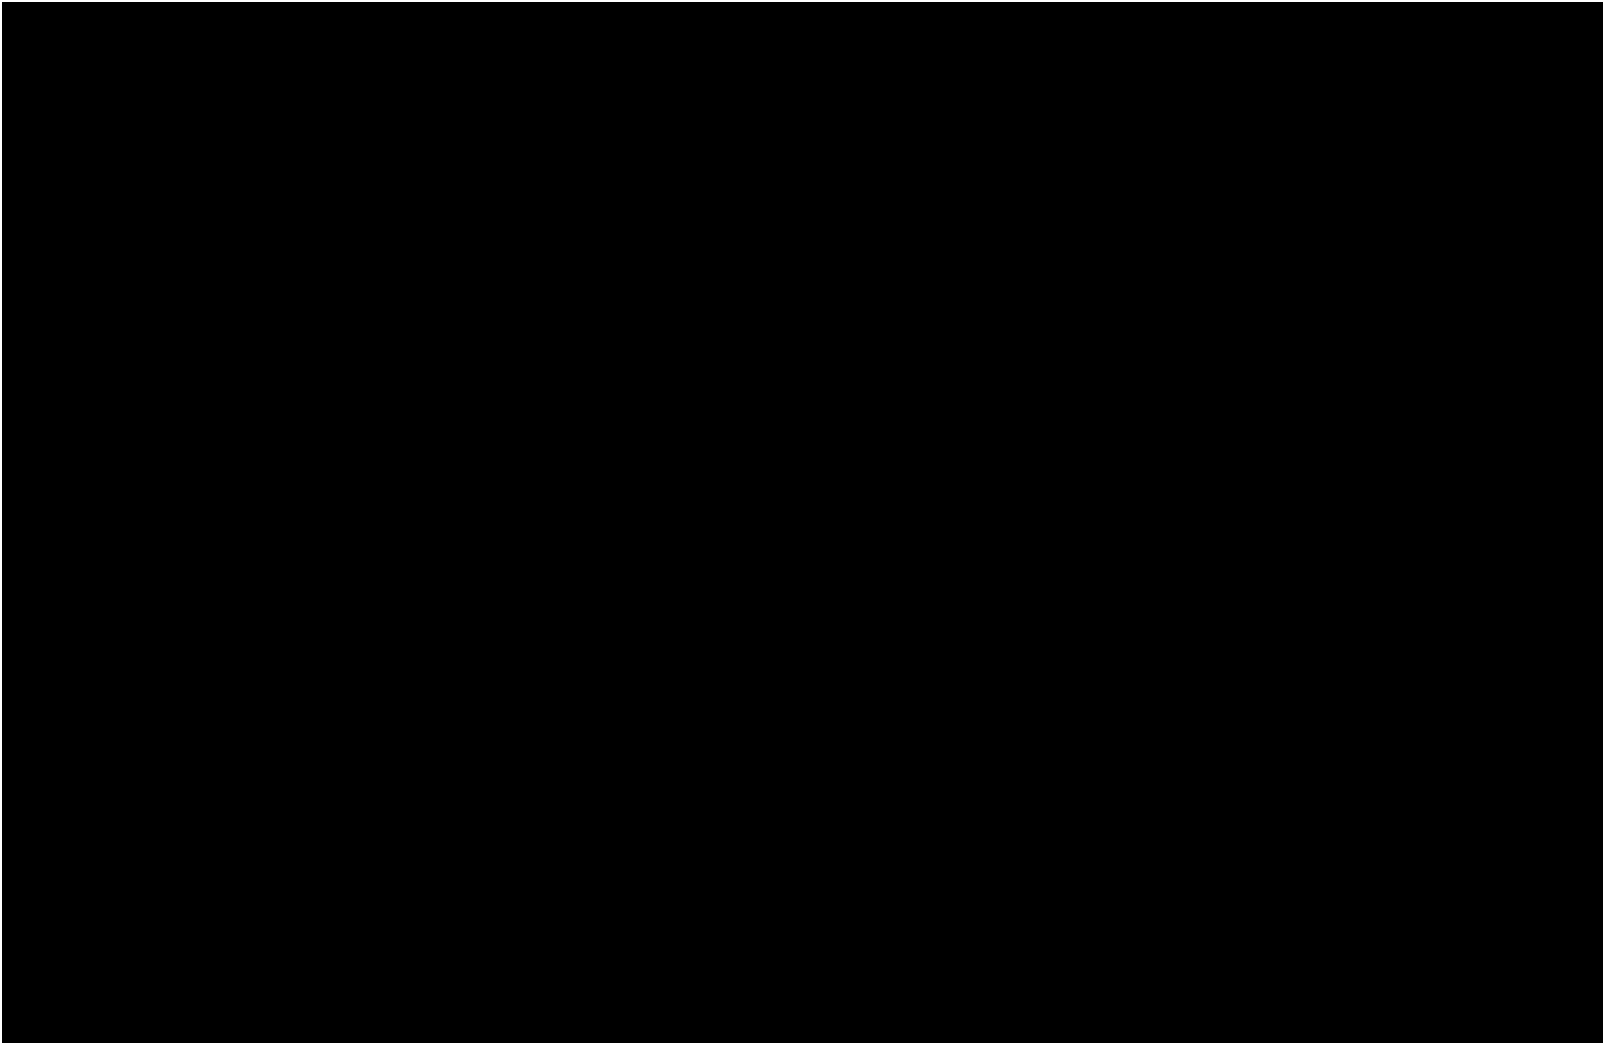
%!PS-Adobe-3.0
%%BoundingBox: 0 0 1603 1043
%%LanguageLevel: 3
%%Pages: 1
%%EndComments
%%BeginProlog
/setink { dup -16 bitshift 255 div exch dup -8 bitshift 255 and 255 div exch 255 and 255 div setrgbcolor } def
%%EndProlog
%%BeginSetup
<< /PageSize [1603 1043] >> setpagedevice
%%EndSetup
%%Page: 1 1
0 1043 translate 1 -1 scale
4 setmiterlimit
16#FFFFFF setink
0 0 1603 1043 rectfill
16#000000 setink
2 2 1601 1041 rectfill
showpage
%%EOF
